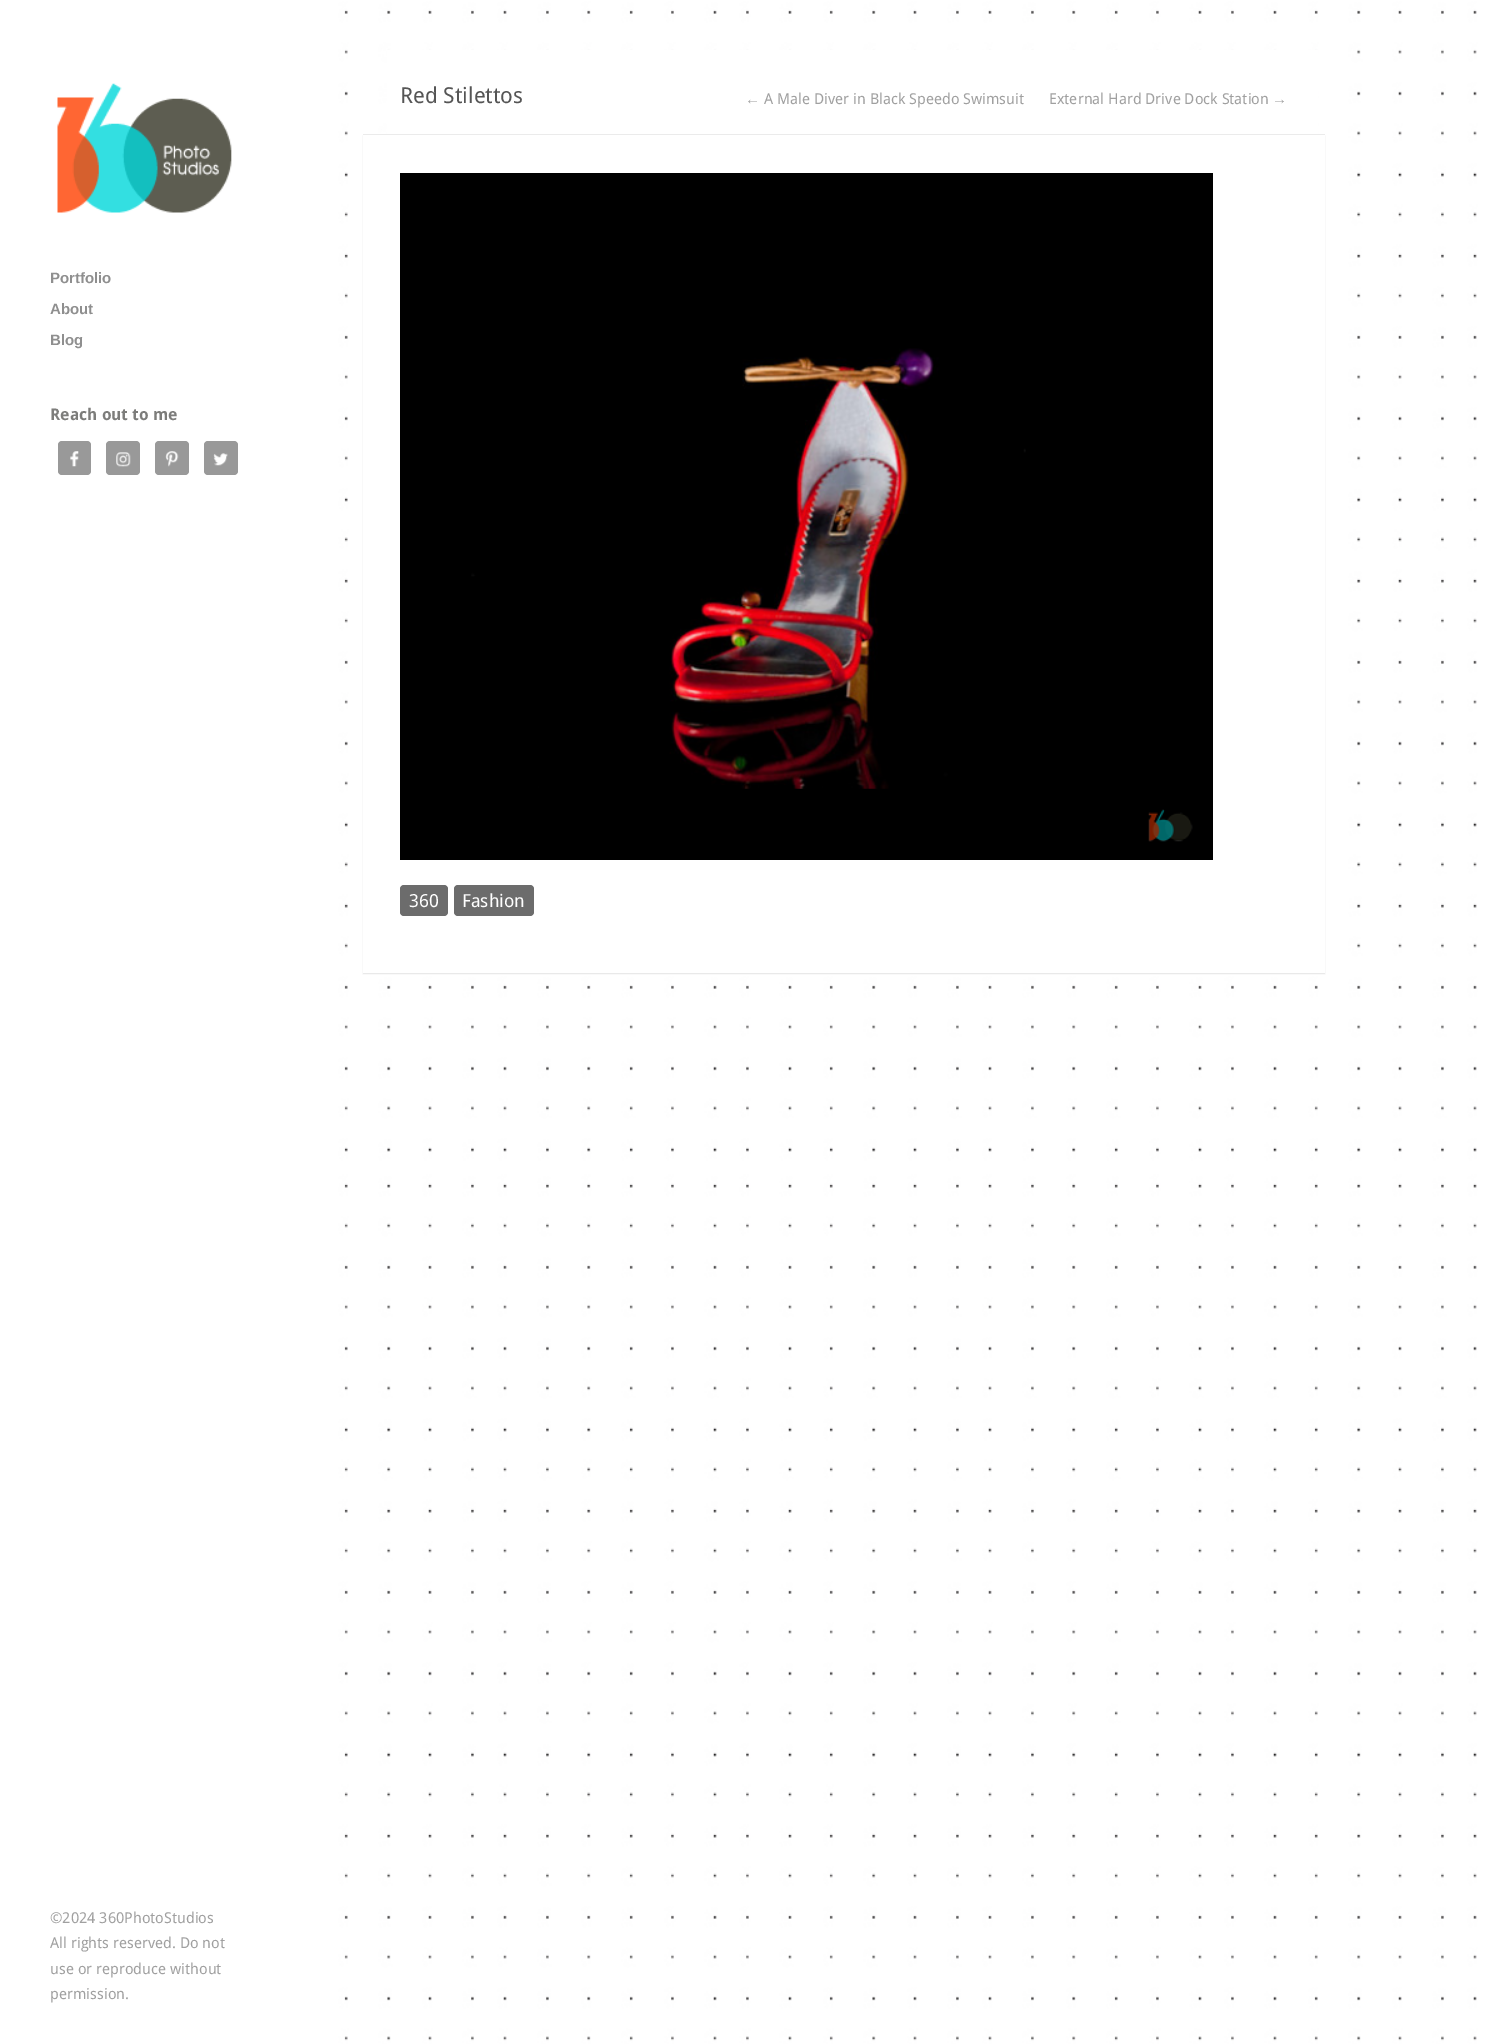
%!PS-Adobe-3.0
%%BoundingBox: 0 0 1492 2044
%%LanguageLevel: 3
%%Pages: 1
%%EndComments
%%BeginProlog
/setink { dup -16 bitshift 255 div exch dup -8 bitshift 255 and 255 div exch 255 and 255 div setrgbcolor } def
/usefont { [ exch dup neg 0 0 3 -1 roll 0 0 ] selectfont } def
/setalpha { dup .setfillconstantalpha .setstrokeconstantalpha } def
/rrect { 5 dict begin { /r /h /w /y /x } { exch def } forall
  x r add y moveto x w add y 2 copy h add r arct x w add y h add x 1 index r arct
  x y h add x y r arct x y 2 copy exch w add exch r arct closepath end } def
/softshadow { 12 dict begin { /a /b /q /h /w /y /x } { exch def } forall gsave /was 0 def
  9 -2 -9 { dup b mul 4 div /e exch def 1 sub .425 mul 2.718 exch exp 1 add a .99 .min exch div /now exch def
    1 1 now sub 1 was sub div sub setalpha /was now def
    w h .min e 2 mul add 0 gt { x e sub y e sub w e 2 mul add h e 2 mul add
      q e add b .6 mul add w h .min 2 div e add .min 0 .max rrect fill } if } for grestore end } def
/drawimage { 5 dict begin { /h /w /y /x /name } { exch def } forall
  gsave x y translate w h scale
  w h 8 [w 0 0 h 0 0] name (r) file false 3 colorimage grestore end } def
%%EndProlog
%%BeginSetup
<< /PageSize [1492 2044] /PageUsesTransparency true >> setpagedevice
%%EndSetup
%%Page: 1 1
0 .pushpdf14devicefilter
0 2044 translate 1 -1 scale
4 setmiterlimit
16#FFFFFF setink
0 0 1492 2044 rectfill
(img1.raw) 313 0 1179 2044 drawimage
387 50 931 84 rectfill
16#EBEBEB setink
363 134 962 1 rectfill
/DroidSans-Regular 22 usefont
16#555555 setink
400 103 moveto (Red Stilettos) show
/LiberationSans-Regular 15 usefont
16#A0A0A0 setink
745 104 moveto (←) show
/DroidSans-Regular 15 usefont
764 104 moveto (A Male Diver in Black Speedo Swimsuit) show
1049 104 moveto (External Hard Drive Dock Station) show
/LiberationSans-Regular 15 usefont
1272 104 moveto (→) show
16#000000 setink
363 136 962 838 0 0.5 0.1 softshadow
16#FFFFFF setink
363 135 962 838 rectfill
16#000000 setink
400 173 813 687 rectfill
(img2.raw) 471 348 555 441 drawimage
(img3.raw) 1148 809 45 33 drawimage
16#6C6C6C setink
400 885 48 31 4 rrect fill
/DroidSans-Regular 18 usefont
16#FFFFFF setink
409 907 moveto (360) show
16#6C6C6C setink
454 885 80 31 4 rrect fill
16#FFFFFF setink
462 907 moveto (Fashion) show
/DroidSans-Regular 15 usefont
16#A0A0A0 setink
[
    [(©2024 360PhotoStudios) 50 1923]
    [(All rights reserved. Do not) 50 1948]
    [(use or reproduce without) 50 1974]
    [(permission.) 50 1999]
] { aload pop moveto show } forall
(img4.raw) 57 83 175 130 drawimage
/LiberationSans-Bold 15 usefont
16#8F8F8F setink
[
    [(Portfolio) 50 283]
    [(About) 50 314]
    [(Blog) 50 345]
] { aload pop moveto show } forall
/DroidSans-Bold 16.25 usefont
16#7D7D7B setink
50 420 moveto (Reach out to me) show
16#999999 setink
58 441 33 34 4 rrect fill
(img5.raw) 70 451 9 16 drawimage
106 441 34 34 4 rrect fill
(img6.raw) 116 452 15 15 drawimage
155 441 34 34 4 rrect fill
(img7.raw) 165 451 14 16 drawimage
204 441 34 34 4 rrect fill
(img8.raw) 213 453 15 13 drawimage
.poppdf14devicefilter showpage
%%EOF
